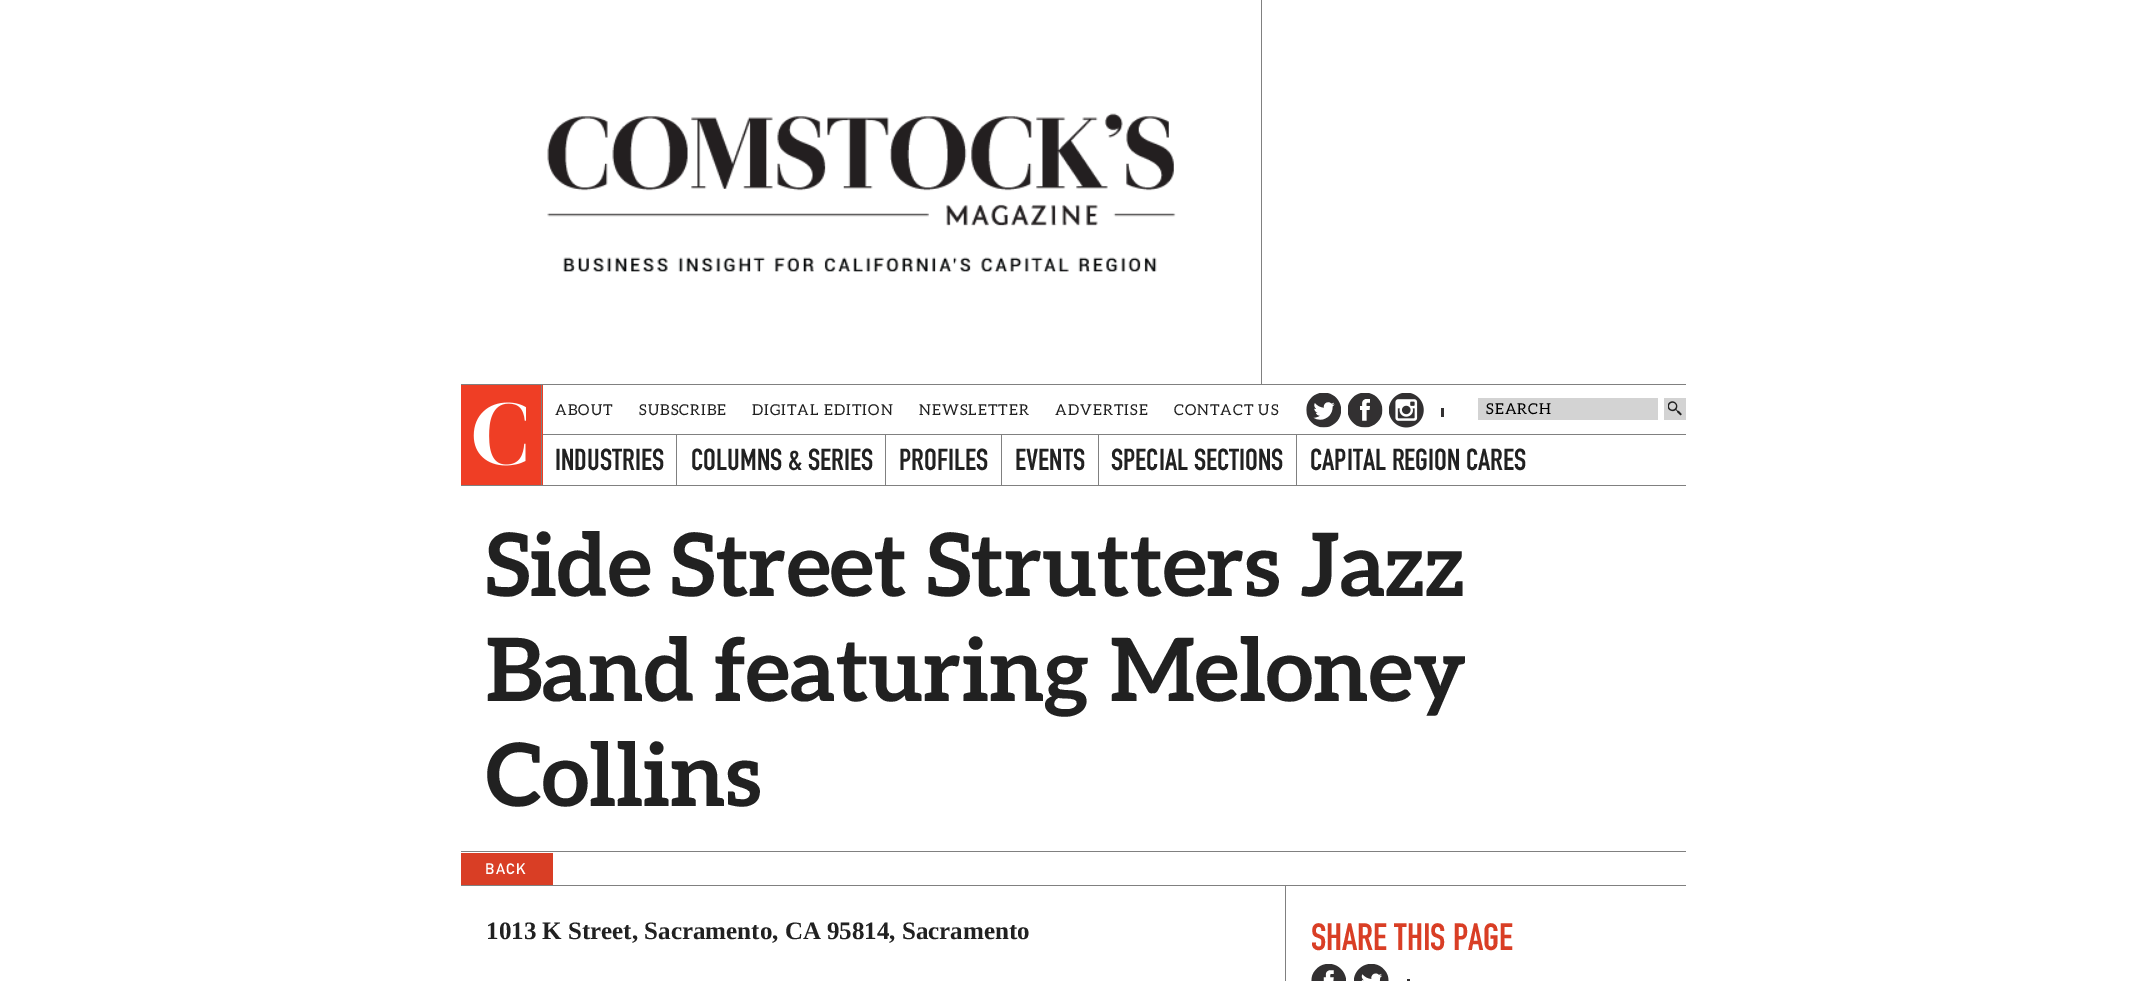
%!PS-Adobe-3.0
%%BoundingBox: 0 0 2147 981
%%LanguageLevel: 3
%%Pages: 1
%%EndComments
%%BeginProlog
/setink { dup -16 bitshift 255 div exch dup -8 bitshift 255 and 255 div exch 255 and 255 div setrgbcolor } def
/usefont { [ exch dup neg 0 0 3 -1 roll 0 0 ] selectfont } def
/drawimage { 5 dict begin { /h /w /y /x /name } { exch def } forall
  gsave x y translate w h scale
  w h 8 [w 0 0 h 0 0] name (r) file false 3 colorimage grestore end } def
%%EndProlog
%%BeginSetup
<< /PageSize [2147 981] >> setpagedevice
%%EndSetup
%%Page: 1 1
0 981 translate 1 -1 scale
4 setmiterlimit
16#FFFFFF setink
0 0 2147 981 rectfill
16#808080 setink
461 384 1225 1 rectfill
(img1.raw) 547 113 629 159 drawimage
[
    [1261 0 1 384 16#808080]
    [461 485 1225 1 16#808080]
    [461 385 82 100 16#EF3E25]
    [541 385 1 100 16#808080]
] { aload pop setink rectfill } forall
(img2.raw) 473 402 53 64 drawimage
(img3.raw) 1306 393 35 35 drawimage
(img4.raw) 1348 393 35 35 drawimage
(img5.raw) 1389 393 35 35 drawimage
16#323031 setink
1441 408 3 9 rectfill
16#D3D3D3 setink
1478 398 180 22 rectfill
/Aleo-Regular 15 usefont
16#000000 setink
1486 414 moveto 1.1 0 (SEARCH) ashow
16#D3D3D3 setink
1664 398 22 22 rectfill
(img6.raw) 1668 401 14 15 drawimage
16#212121 setink
555 415 moveto 1.1 0 (ABOUT) ashow
639 415 moveto 1.1 0 (SUBSCRIBE) ashow
752 415 moveto 1.1 0 (DIGITAL EDITION) ashow
919 415 moveto 1.1 0 (NEWSLETTER) ashow
1055 415 moveto 1.1 0 (ADVERTISE) ashow
1174 415 moveto 1.1 0 (CONTACT US) ashow
16#808080 setink
543 434 1143 1 rectfill
/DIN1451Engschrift-Regular 30 usefont
16#212121 setink
555 470 moveto (INDUSTRIES) show
16#808080 setink
676 435 1 50 rectfill
16#212121 setink
691 470 moveto (COLUMNS & SERIES) show
16#808080 setink
885 435 1 50 rectfill
16#212121 setink
899 470 moveto (PROFILES) show
16#808080 setink
1001 435 1 50 rectfill
16#212121 setink
1015 470 moveto (EVENTS) show
16#808080 setink
1098 435 1 50 rectfill
16#212121 setink
1111 470 moveto (SPECIAL SECTIONS) show
16#808080 setink
1296 435 1 50 rectfill
16#212121 setink
1310 470 moveto (CAPITAL REGION CARES) show
/Aleo-Bold 87.5 usefont
[
    [(Side Street Strutters Jazz) 486 596]
    [(Band featuring Meloney) 486 701]
    [(Collins) 486 806]
] { aload pop moveto show } forall
[
    [461 851 1225 1 16#808080]
    [461 885 1225 1 16#808080]
    [461 853 92 32 16#D93E25]
] { aload pop setink rectfill } forall
/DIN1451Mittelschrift-Regular 15 usefont
16#FFFFFF setink
485 874 moveto 1.5 0 (BACK) ashow
16#808080 setink
1285 886 1 95 rectfill
/LiberationSerif-Bold 25 usefont
16#212121 setink
486 939 moveto (1013 K Street, Sacramento, CA 95814, Sacramento) show
/DIN1451Engschrift-Regular 37.5 usefont
16#D93E25 setink
1311 950 moveto (SHARE THIS PAGE) show
(img7.raw) 1311 964 35 17 drawimage
(img8.raw) 1354 964 35 17 drawimage
16#323031 setink
1407 979 3 2 rectfill
showpage
%%EOF
